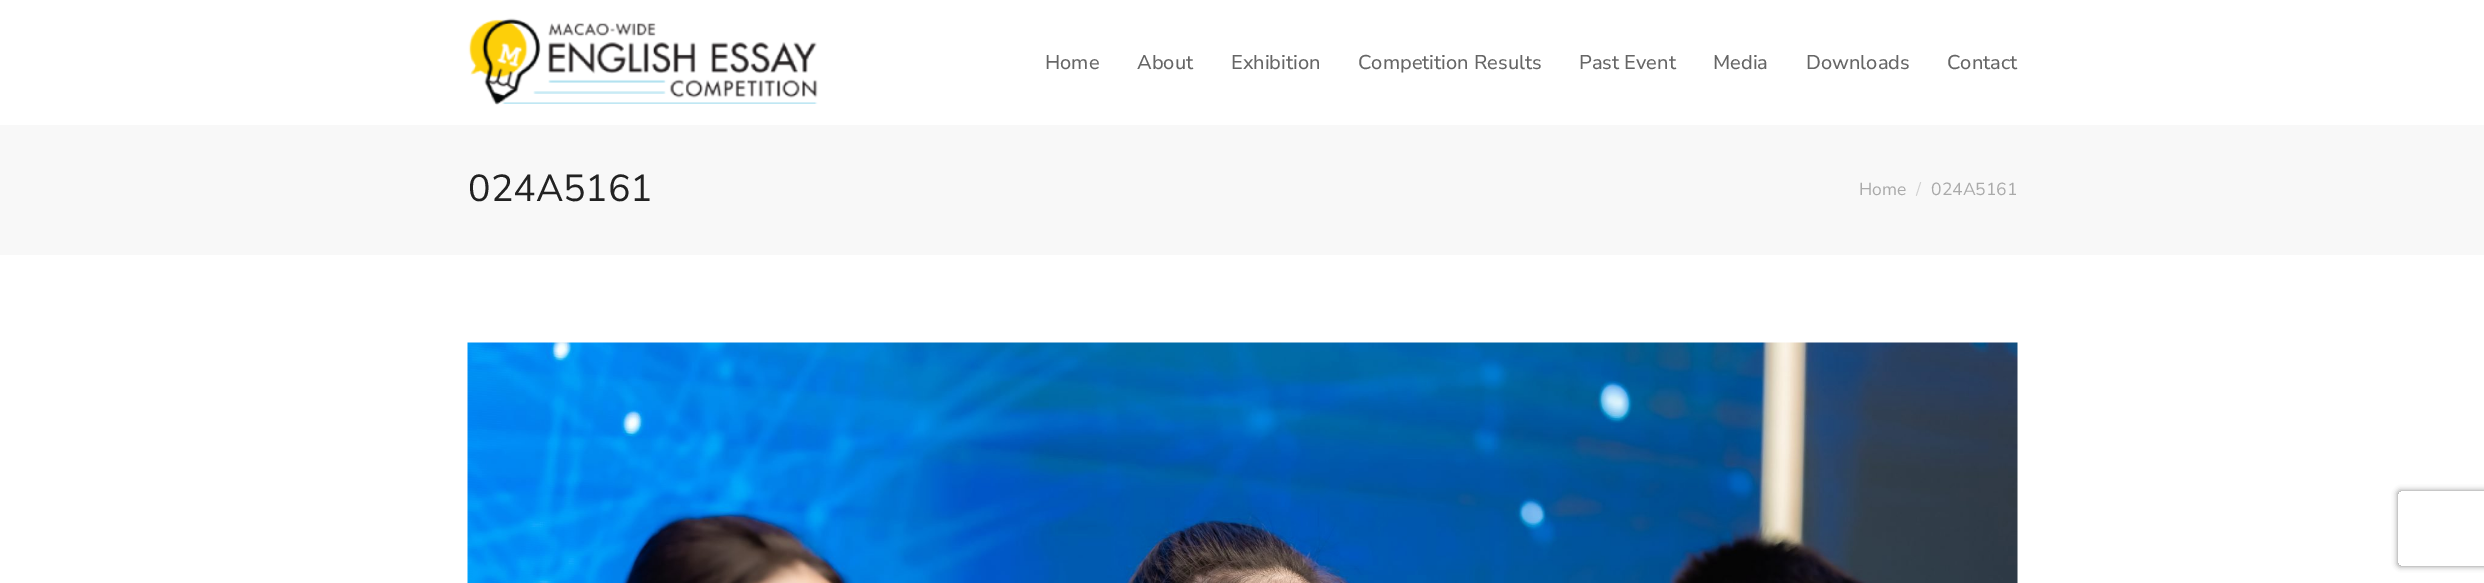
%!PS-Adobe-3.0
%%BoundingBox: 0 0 2484 583
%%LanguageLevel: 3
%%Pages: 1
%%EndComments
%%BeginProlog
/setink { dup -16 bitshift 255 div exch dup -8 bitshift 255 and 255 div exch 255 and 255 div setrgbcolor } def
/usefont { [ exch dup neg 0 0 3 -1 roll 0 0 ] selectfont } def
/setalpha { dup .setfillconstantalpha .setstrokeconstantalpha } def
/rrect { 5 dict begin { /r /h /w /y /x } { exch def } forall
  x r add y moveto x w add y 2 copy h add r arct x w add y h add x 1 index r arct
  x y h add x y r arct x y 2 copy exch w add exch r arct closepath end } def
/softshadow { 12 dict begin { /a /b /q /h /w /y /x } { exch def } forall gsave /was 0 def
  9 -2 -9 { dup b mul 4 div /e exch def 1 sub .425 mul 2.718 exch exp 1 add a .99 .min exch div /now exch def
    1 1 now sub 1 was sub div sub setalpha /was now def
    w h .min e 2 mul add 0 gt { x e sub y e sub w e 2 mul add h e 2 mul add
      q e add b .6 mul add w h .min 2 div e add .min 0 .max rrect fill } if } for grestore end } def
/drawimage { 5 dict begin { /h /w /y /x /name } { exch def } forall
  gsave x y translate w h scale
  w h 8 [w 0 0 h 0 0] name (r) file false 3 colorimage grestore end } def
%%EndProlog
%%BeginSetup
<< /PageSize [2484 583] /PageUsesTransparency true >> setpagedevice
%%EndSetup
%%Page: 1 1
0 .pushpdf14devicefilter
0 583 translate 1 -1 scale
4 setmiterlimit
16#FFFFFF setink
0 0 2484 583 rectfill
(img1.raw) 468 18 350 87 drawimage
/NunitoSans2-ExtraLight 20 usefont
16#666666 setink
[
    [(Home) 1045 69]
    [(About) 1137 69]
    [(Exhibition) 1231 69]
    [(Competition Results) 1358 69]
    [(Past Event) 1579 69]
    [(Media) 1713 69]
    [(Downloads) 1806 69]
    [(Contact) 1947 69]
] { aload pop moveto show } forall
16#F8F8F8 setink
0 125 2484 130 rectfill
/NunitoSans-ExtraLight 37.5 usefont
16#222222 setink
468 201 moveto (024A5161) show
/NunitoSans-ExtraLight 17.5 usefont
16#AAAAAA setink
1859 195 moveto (Home) show
16#D1D1D1 setink
1916 195 moveto (/) show
16#AAAAAA setink
1931 195 moveto (024A5161) show
(img2.raw) 467 342 1551 241 drawimage
gsave
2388 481 moveto 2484 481 lineto 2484 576 lineto 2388 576 lineto closepath 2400.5 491 moveto 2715.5 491 lineto 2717 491 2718 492 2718 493.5 curveto 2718 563.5 lineto 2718 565 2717 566 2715.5 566 curveto 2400.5 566 lineto 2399 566 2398 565 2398 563.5 curveto 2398 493.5 lineto 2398 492 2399 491 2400.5 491 curveto closepath eoclip newpath
16#808080 setink
2398 491 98 75 2.5 3 1 softshadow
grestore
.poppdf14devicefilter showpage
%%EOF
